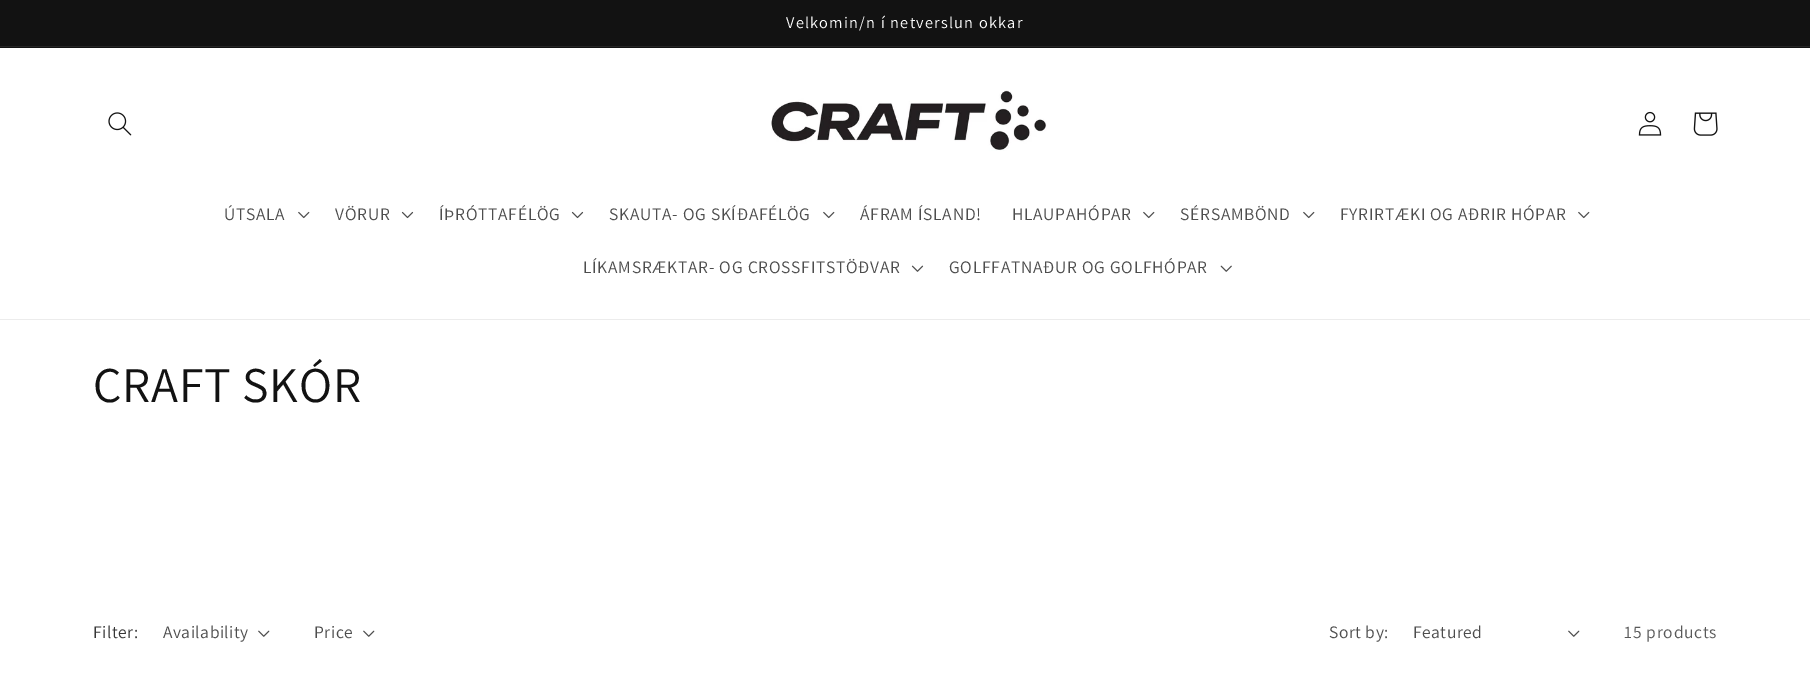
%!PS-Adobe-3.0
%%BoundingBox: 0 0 1810 689
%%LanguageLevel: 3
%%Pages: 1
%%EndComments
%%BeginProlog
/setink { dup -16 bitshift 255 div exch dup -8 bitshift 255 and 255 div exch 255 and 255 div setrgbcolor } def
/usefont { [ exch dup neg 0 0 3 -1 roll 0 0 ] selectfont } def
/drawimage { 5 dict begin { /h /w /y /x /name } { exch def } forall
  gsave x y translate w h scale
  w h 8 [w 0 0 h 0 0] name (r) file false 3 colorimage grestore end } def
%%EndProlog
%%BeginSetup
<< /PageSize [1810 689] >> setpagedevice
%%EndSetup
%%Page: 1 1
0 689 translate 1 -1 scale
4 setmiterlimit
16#FFFFFF setink
0 0 1810 689 rectfill
16#121212 setink
0 0 1810 48 rectfill
16#252525 setink
0 46 1810 1 rectfill
/Assistant-Regular 16.25 usefont
16#FFFFFF setink
786 28 moveto 1.25 0 (Velkomin/n í netverslun okkar) ashow
16#ECECEC setink
0 319 1810 1 rectfill
(img1.raw) 108 112 24 24 drawimage
(img2.raw) 771 90 276 61 drawimage
(img3.raw) 1638 111 24 25 drawimage
(img4.raw) 1693 112 25 24 drawimage
/Assistant-Regular 17.5 usefont
16#4D4D4D setink
224 220 moveto 0.75 0 (ÚTSALA) ashow
(img5.raw) 298 211 12 8 drawimage
335 220 moveto 0.75 0 (VÖRUR) ashow
(img6.raw) 401 211 13 8 drawimage
439 220 moveto 0.75 0 (ÍÞRÓTTAFÉLÖG) ashow
(img6.raw) 571 211 13 8 drawimage
609 220 moveto 0.75 0 (SKAUTA- OG SKÍÐAFÉLÖG) ashow
(img5.raw) 823 211 12 8 drawimage
860 220 moveto 0.75 0 (ÁFRAM ÍSLAND!) ashow
1012 220 moveto 0.75 0 (HLAUPAHÓPAR) ashow
(img5.raw) 1143 211 12 8 drawimage
1180 220 moveto 0.75 0 (SÉRSAMBÖND) ashow
(img5.raw) 1303 211 12 8 drawimage
1340 220 moveto 0.75 0 (FYRIRTÆKI OG AÐRIR HÓPAR) ashow
(img5.raw) 1578 211 12 8 drawimage
583 273 moveto 0.75 0 (LÍKAMSRÆKTAR- OG CROSSFITSTÖÐVAR) ashow
(img7.raw) 911 265 13 7 drawimage
949 273 moveto 0.75 0 (GOLFFATNAÐUR OG GOLFHÓPAR) ashow
(img8.raw) 1220 265 12 7 drawimage
/Assistant-Regular 50 usefont
16#121212 setink
93 402 moveto 0.75 0 (CRAFT SKÓR) ashow
/Assistant-Regular 17.5 usefont
16#363636 setink
93 638 moveto 0.5 0 (Filter:) ashow
16#4D4D4D setink
163 638 moveto 0.5 0 (Availability) ashow
(img9.raw) 258 630 12 7 drawimage
314 638 moveto 0.5 0 (Price) ashow
(img9.raw) 363 630 12 7 drawimage
1329 638 moveto 0.5 0 (Sort by:) ashow
1413 638 moveto 0.5 0 (Featured) ashow
(img9.raw) 1568 630 12 7 drawimage
16#595959 setink
1624 638 moveto 0.75 0 (15 products) ashow
showpage
%%EOF
